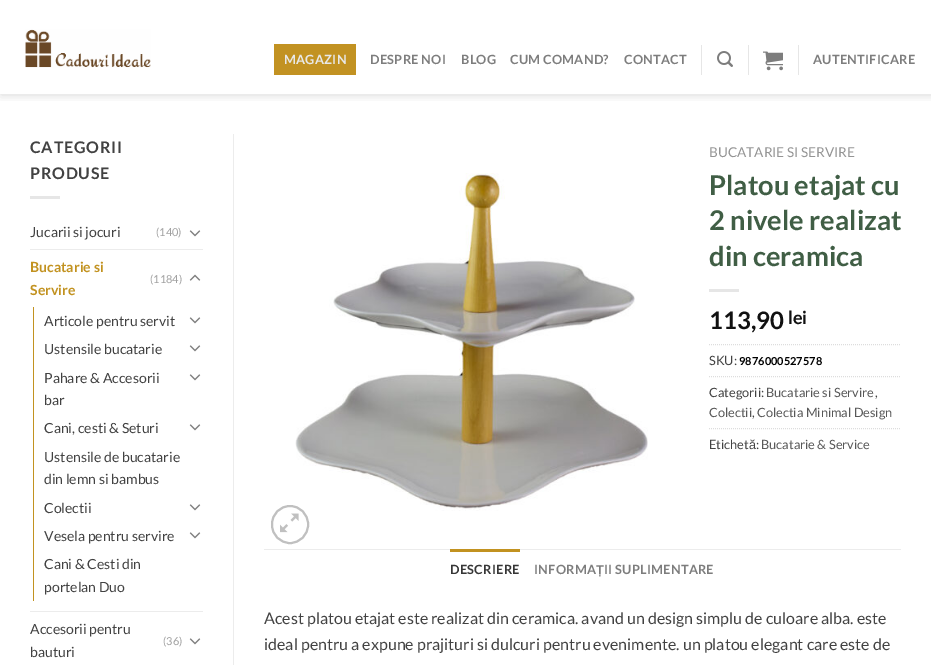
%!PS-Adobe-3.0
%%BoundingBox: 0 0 931 665
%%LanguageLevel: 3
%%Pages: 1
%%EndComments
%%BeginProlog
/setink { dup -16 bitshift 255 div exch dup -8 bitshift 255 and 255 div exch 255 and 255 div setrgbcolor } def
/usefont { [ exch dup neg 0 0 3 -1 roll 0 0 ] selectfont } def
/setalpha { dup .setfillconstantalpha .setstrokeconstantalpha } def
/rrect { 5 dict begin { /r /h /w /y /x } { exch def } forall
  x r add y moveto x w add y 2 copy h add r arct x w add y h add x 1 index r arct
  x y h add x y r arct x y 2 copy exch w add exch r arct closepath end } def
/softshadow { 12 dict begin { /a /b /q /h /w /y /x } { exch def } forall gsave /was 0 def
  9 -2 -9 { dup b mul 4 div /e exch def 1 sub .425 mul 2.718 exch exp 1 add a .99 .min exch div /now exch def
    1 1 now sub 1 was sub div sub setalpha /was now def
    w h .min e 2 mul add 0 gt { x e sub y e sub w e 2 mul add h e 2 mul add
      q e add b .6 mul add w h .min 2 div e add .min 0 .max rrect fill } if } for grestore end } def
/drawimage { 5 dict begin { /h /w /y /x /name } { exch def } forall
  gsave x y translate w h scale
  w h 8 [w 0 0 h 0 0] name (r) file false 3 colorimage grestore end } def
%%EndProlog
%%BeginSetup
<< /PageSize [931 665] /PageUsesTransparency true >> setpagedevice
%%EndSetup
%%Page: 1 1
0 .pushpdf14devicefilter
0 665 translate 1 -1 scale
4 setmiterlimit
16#FFFFFF setink
0 0 931 665 rectfill
gsave
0 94 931 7 rectclip
16#000000 setink
1 1 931 94 0 5 0.15 softshadow
grestore
(img1.raw) 25 29 126 39 drawimage
16#C29222 setink
274 44 82 31 rectfill
/Lato-Bold 12.75 usefont
16#E8E8E8 setink
284 64 moveto 0.25 0 (MAGAZIN) ashow
16#7D7D7D setink
370 64 moveto 0.25 0 (DESPRE NOI) ashow
461 64 moveto 0.25 0 (BLOG) ashow
510 64 moveto 0.25 0 (CUM COMAND?) ashow
624 64 moveto 0.25 0 (CONTACT) ashow
16#E6E6E6 setink
701 45 1 30 rectfill
(img2.raw) 717 51 16 16 drawimage
748 45 1 30 rectfill
(img3.raw) 763 51 20 20 drawimage
798 45 1 30 rectfill
16#7D7D7D setink
813 64 moveto 0.25 0 (AUTENTIFICARE) ashow
/Lato-Bold 16 usefont
16#424242 setink
30 153 moveto 0.75 0 (CATEGORII) ashow
30 179 moveto 0.75 0 (PRODUSE) ashow
16#E6E6E6 setink
30 196 30 3 rectfill
/Lato-Regular 14 usefont
16#424242 setink
30 237 moveto (Jucarii si jocuri) show
/Lato-Regular 11 usefont
16#A1A1A1 setink
156 236 moveto (\(140\)) show
(img4.raw) 189 230 12 7 drawimage
16#ECECEC setink
30 249 173 1 rectfill
/Lato-Bold 14 usefont
16#C29220 setink
30 272 moveto (Bucatarie si) show
30 295 moveto (Servire) show
/Lato-Regular 11 usefont
16#A1A1A1 setink
150 283 moveto (\(1184\)) show
(img5.raw) 189 274 12 7 drawimage
16#C29220 setink
33 307 1 294 rectfill
/Lato-Regular 14 usefont
16#424242 setink
44 326 moveto (Articole pentru servit) show
(img4.raw) 189 317 12 7 drawimage
44 354 moveto (Ustensile bucatarie) show
(img4.raw) 189 345 12 7 drawimage
44 383 moveto (Pahare & Accesorii) show
44 405 moveto (bar) show
(img4.raw) 189 374 12 7 drawimage
44 433 moveto (Cani, cesti & Seturi) show
(img4.raw) 189 424 12 7 drawimage
[
    [(Ustensile de bucatarie) 44 462]
    [(din lemn si bambus) 44 484]
    [(Colectii) 44 513]
] { aload pop moveto show } forall
(img4.raw) 189 504 12 7 drawimage
44 541 moveto (Vesela pentru servire) show
(img4.raw) 189 532 12 7 drawimage
44 569 moveto (Cani & Cesti din) show
44 592 moveto (portelan Duo) show
16#ECECEC setink
30 611 173 1 rectfill
16#424242 setink
30 634 moveto (Accesorii pentru) show
30 657 moveto (bauturi) show
/Lato-Regular 11 usefont
16#A1A1A1 setink
163 645 moveto (\(36\)) show
(img4.raw) 189 638 12 7 drawimage
16#ECECEC setink
233 134 1 531 rectfill
(img6.raw) 295 173 353 338 drawimage
16#C0C0C0 setink
2 setlinewidth
272 506 36 37 18 rrect stroke
(img7.raw) 280 513 19 20 drawimage
/Lato-Regular 13.6 usefont
16#949494 setink
709 157 moveto (BUCATARIE SI SERVIRE) show
/Lato-Bold 27.25 usefont
16#405E45 setink
[
    [(Platou etajat cu) 709 195]
    [(2 nivele realizat) 709 230]
    [(din ceramica) 709 266]
] { aload pop moveto show } forall
16#E6E6E6 setink
709 289 30 3 rectfill
/Lato-Bold 24 usefont
16#111111 setink
709 329 moveto (113,90) show
/Lato-Bold 18 usefont
788 324 moveto (lei) show
16#DDDDDD setink
1 setlinewidth
[1 1] 0 setdash
709 344.5 moveto 901 344.5 lineto stroke
/Lato-Regular 12.75 usefont
16#424242 setink
709 365 moveto (SKU:) show
/Lato-Bold 11 usefont
16#000000 setink
739 365 moveto (9876000527578) show
16#DDDDDD setink
709 376.5 moveto 901 376.5 lineto stroke
/Lato-Regular 12.75 usefont
16#424242 setink
709 397 moveto (Categorii:) show
16#585858 setink
766 397 moveto (Bucatarie si Servire) show
16#424242 setink
875 397 moveto (,) show
16#585858 setink
709 417 moveto (Colectii) show
16#424242 setink
752 417 moveto (,) show
16#585858 setink
757 417 moveto (Colectia Minimal Design) show
16#DDDDDD setink
709 428.5 moveto 901 428.5 lineto stroke
16#424242 setink
709 449 moveto (Etichet) show
/LiberationSans-Regular 12.75 usefont
749 449 moveto (ă) show
/Lato-Regular 12.75 usefont
756 449 moveto (:) show
16#585858 setink
761 449 moveto (Bucatarie & Service) show
16#ECECEC setink
264 549 637 1 rectfill
16#C29220 setink
450 549 70 3 rectfill
/Lato-Bold 12.75 usefont
16#363636 setink
450 574 moveto 0.25 0 (DESCRIERE) ashow
16#7D7D7D setink
534 574 moveto 0.25 0 (INFORMA) ashow
/LiberationSans-Bold 12.75 usefont
596 574 moveto 0.25 0 (Ț) ashow
/Lato-Bold 12.75 usefont
604 574 moveto 0.25 0 (II SUPLIMENTARE) ashow
/Lato-Regular 16 usefont
16#424242 setink
264 624 moveto (Acest platou etajat este realizat din ceramica. avand un design simplu de culoare alba. este) show
264 650 moveto (ideal pentru a expune prajituri si dulcuri pentru evenimente. un platou elegant care este de) show
.poppdf14devicefilter showpage
%%EOF
